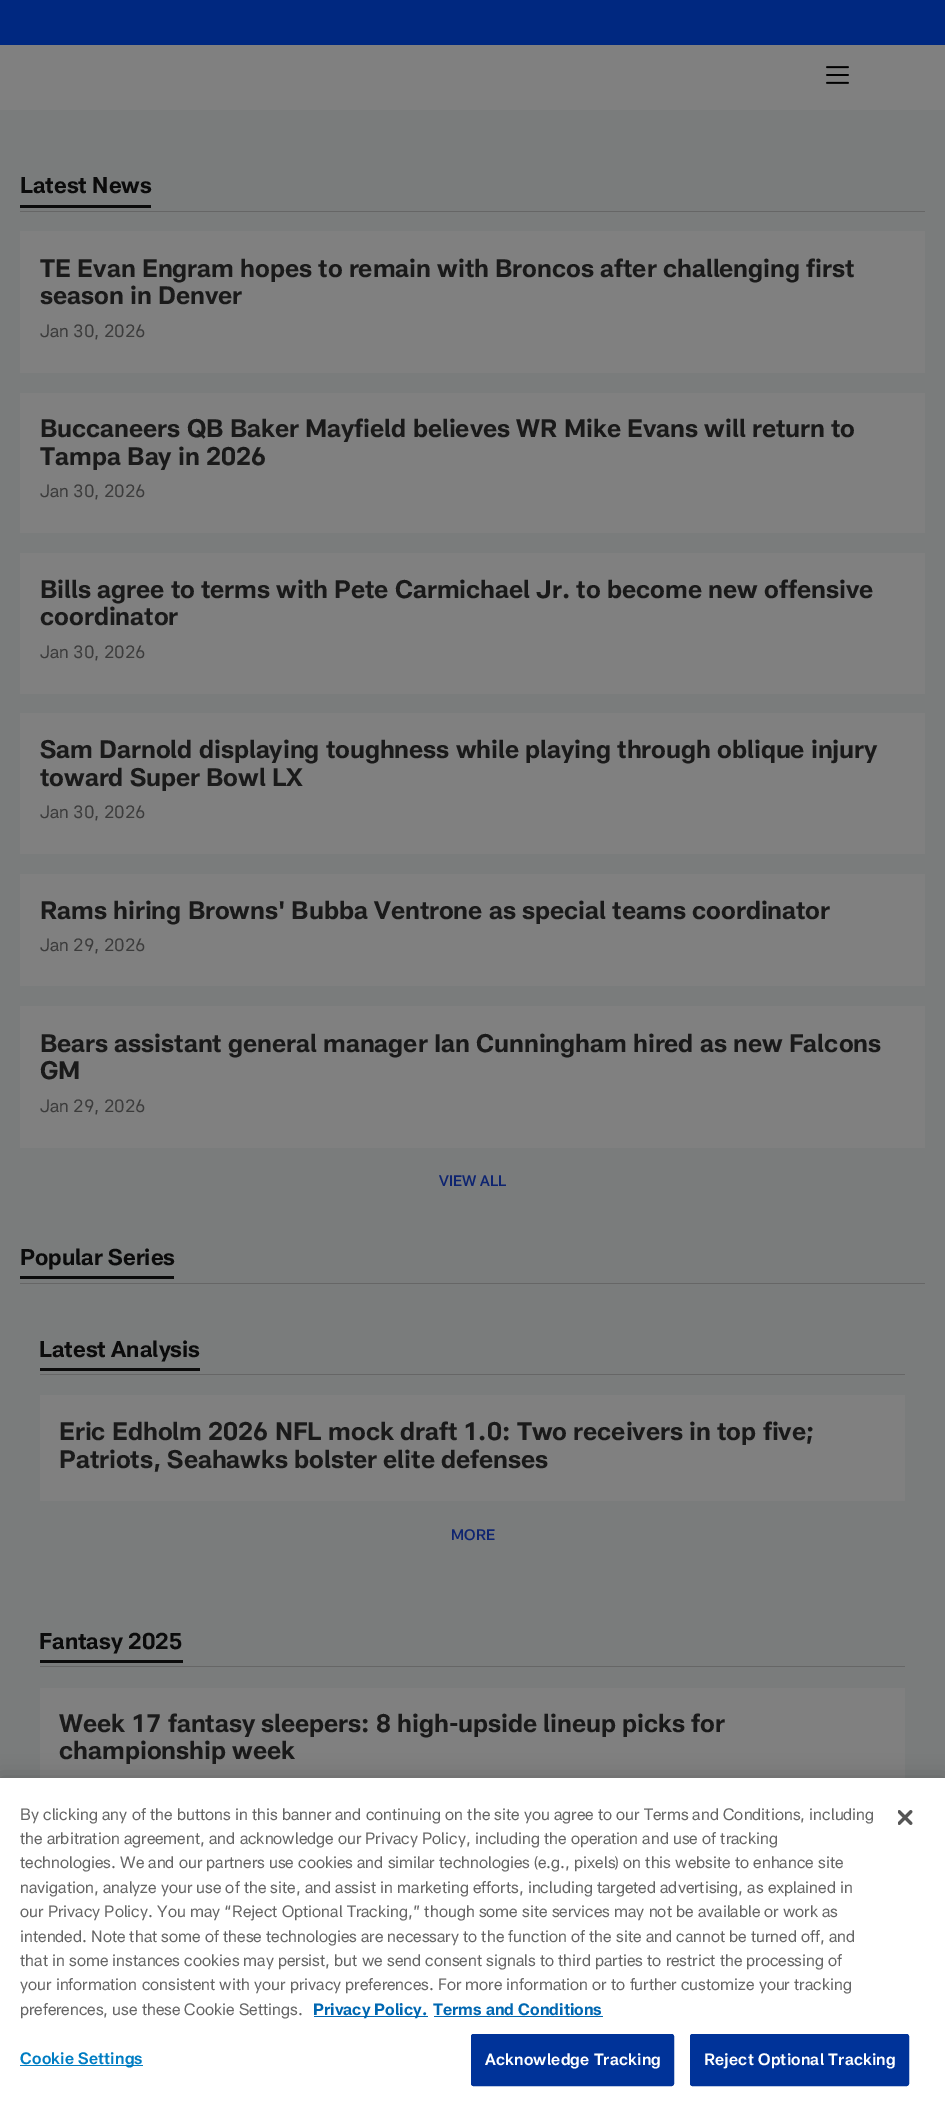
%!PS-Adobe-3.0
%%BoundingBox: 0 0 945 2110
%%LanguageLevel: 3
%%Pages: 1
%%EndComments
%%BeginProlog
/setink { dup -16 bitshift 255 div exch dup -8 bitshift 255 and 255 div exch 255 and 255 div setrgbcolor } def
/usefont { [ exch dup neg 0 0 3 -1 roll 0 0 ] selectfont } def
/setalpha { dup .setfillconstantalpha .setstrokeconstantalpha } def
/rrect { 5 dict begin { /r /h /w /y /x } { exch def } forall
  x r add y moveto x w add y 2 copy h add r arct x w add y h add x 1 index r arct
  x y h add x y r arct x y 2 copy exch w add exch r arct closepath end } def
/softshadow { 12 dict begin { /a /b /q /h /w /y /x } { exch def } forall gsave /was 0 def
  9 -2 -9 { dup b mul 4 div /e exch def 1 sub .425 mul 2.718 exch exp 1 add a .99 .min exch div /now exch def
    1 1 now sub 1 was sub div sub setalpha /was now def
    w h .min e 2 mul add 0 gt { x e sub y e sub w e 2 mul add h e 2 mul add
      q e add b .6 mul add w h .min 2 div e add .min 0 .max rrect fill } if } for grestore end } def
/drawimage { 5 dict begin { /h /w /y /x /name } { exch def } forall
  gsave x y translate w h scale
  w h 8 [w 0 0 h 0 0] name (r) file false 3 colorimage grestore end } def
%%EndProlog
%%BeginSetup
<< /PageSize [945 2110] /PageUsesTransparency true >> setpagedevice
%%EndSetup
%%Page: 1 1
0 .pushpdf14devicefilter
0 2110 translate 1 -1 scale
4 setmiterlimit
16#7A7C7C setink
0 0 945 2110 rectfill
16#808080 setink
0 45 945 65 rectfill
16#002880 setink
0 0 945 45 rectfill
(img1.raw) 826 66 23 18 drawimage
16#666666 setink
20 211 905 1 rectfill
16#0B0B0B setink
20 205 131 3 rectfill
/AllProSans-Bold 22.5 usefont
20 193 moveto (Latest News) show
16#808080 setink
20 231 905 142 rectfill
/AllProSans-Bold 25 usefont
16#1A1A1A setink
40 277 moveto (TE Evan Engram hopes to remain with Broncos after challenging first) show
40 304 moveto (season in Denver) show
/AllProSans-Regular 17.5 usefont
16#3B3B3B setink
40 337 moveto (Jan 30, 2026) show
16#808080 setink
20 393 905 140 rectfill
/AllProSans-Bold 25 usefont
16#1A1A1A setink
40 437 moveto (Buccaneers QB Baker Mayfield believes WR Mike Evans will return to) show
40 465 moveto (Tampa Bay in 2026) show
/AllProSans-Regular 17.5 usefont
16#3B3B3B setink
40 497 moveto (Jan 30, 2026) show
16#808080 setink
20 553 905 141 rectfill
/AllProSans-Bold 25 usefont
16#1A1A1A setink
40 598 moveto (Bills agree to terms with Pete Carmichael Jr. to become new offensive) show
40 625 moveto (coordinator) show
/AllProSans-Regular 17.5 usefont
16#3B3B3B setink
40 658 moveto (Jan 30, 2026) show
16#808080 setink
20 713 905 141 rectfill
/AllProSans-Bold 25 usefont
16#1A1A1A setink
40 758 moveto (Sam Darnold displaying toughness while playing through oblique injury) show
40 786 moveto (toward Super Bowl LX) show
/AllProSans-Regular 17.5 usefont
16#3B3B3B setink
40 818 moveto (Jan 30, 2026) show
16#808080 setink
20 874 905 112 rectfill
/AllProSans-Bold 25 usefont
16#1A1A1A setink
40 919 moveto (Rams hiring Browns' Bubba Ventrone as special teams coordinator) show
/AllProSans-Regular 17.5 usefont
16#3B3B3B setink
40 951 moveto (Jan 29, 2026) show
16#808080 setink
20 1006 905 142 rectfill
/AllProSans-Bold 25 usefont
16#1A1A1A setink
40 1052 moveto (Bears assistant general manager Ian Cunningham hired as new Falcons) show
40 1079 moveto (GM) show
/AllProSans-Regular 17.5 usefont
16#3B3B3B setink
40 1112 moveto (Jan 29, 2026) show
/AllProSans-Medium 15 usefont
16#0E2470 setink
439 1186 moveto (VIEW ALL) show
16#666666 setink
20 1283 905 1 rectfill
16#0B0B0B setink
20 1276 154 3 rectfill
/AllProSans-Bold 22.5 usefont
20 1265 moveto (Popular Series) show
16#666666 setink
40 1374 865 1 rectfill
16#0B0B0B setink
40 1368 160 3 rectfill
39 1357 moveto (Latest Analysis) show
16#808080 setink
40 1395 865 106 rectfill
/AllProSans-Bold 25 usefont
16#1A1A1A setink
59 1440 moveto (Eric Edholm 2026 NFL mock draft 1.0: Two receivers in top five;) show
59 1468 moveto (Patriots, Seahawks bolster elite defenses) show
/AllProSans-Medium 15 usefont
16#0E2470 setink
451 1540 moveto (MORE) show
16#666666 setink
40 1666 865 1 rectfill
16#0B0B0B setink
40 1660 143 3 rectfill
/AllProSans-Bold 22.5 usefont
39 1649 moveto (Fantasy 2025) show
16#808080 setink
40 1688 865 90 rectfill
/AllProSans-Bold 25 usefont
16#1A1A1A setink
59 1732 moveto (Week 17 fantasy sleepers: 8 high-upside lineup picks for) show
59 1759 moveto (championship week) show
16#000000 setink
0 1778 945 332 0 11 0.2 softshadow
16#FFFFFF setink
0 1778 945 332 rectfill
/AllProSans-Regular 16.25 usefont
16#666666 setink
[
    [(By clicking any of the buttons in this banner and continuing on the site you agree to our Terms and Conditions, including) 20 1820]
    [(the arbitration agreement, and acknowledge our Privacy Policy, including the operation and use of tracking) 20 1844]
    [(technologies. We and our partners use cookies and similar technologies \(e.g., pixels\) on this website to enhance site) 20 1868]
    [(navigation, analyze your use of the site, and assist in marketing efforts, including targeted advertising, as explained in) 20 1893]
    [(our Privacy Policy. You may “Reject Optional Tracking,” though some site services may not be available or work as) 20 1917]
    [(intended. Note that some of these technologies are necessary to the function of the site and cannot be turned off, and) 20 1942]
    [(that in some instances cookies may persist, but we send consent signals to third parties to restrict the processing of) 20 1966]
    [(your information consistent with your privacy preferences. For more information or to further customize your tracking) 20 1990]
    [(preferences, use these Cookie Settings.) 20 2015]
] { aload pop moveto show } forall
16#0067B1 setink
314 2016 114 1 rectfill
/AllProSans-Bold 16.25 usefont
313 2015 moveto (Privacy Policy.) show
433 2015 moveto (Terms and Conditions) show
434 2016 169 1 rectfill
16#007DC3 setink
20 2065 123 1 rectfill
/AllProSans-SemiBold 16.25 usefont
20 2064 moveto 0.2 0 (Cookie Settings) ashow
16#003399 setink
471.5 2034.5 202 51 2 rrect gsave fill grestore
stroke
16#FFFFFF setink
485 2065 moveto 0.2 0 (Acknowledge Tracking) ashow
16#003399 setink
690.5 2034.5 218 51 2 rrect gsave fill grestore
stroke
16#FFFFFF setink
704 2065 moveto 0.2 0 (Reject Optional Tracking) ashow
(img2.raw) 898 1810 15 15 drawimage
.poppdf14devicefilter showpage
%%EOF
